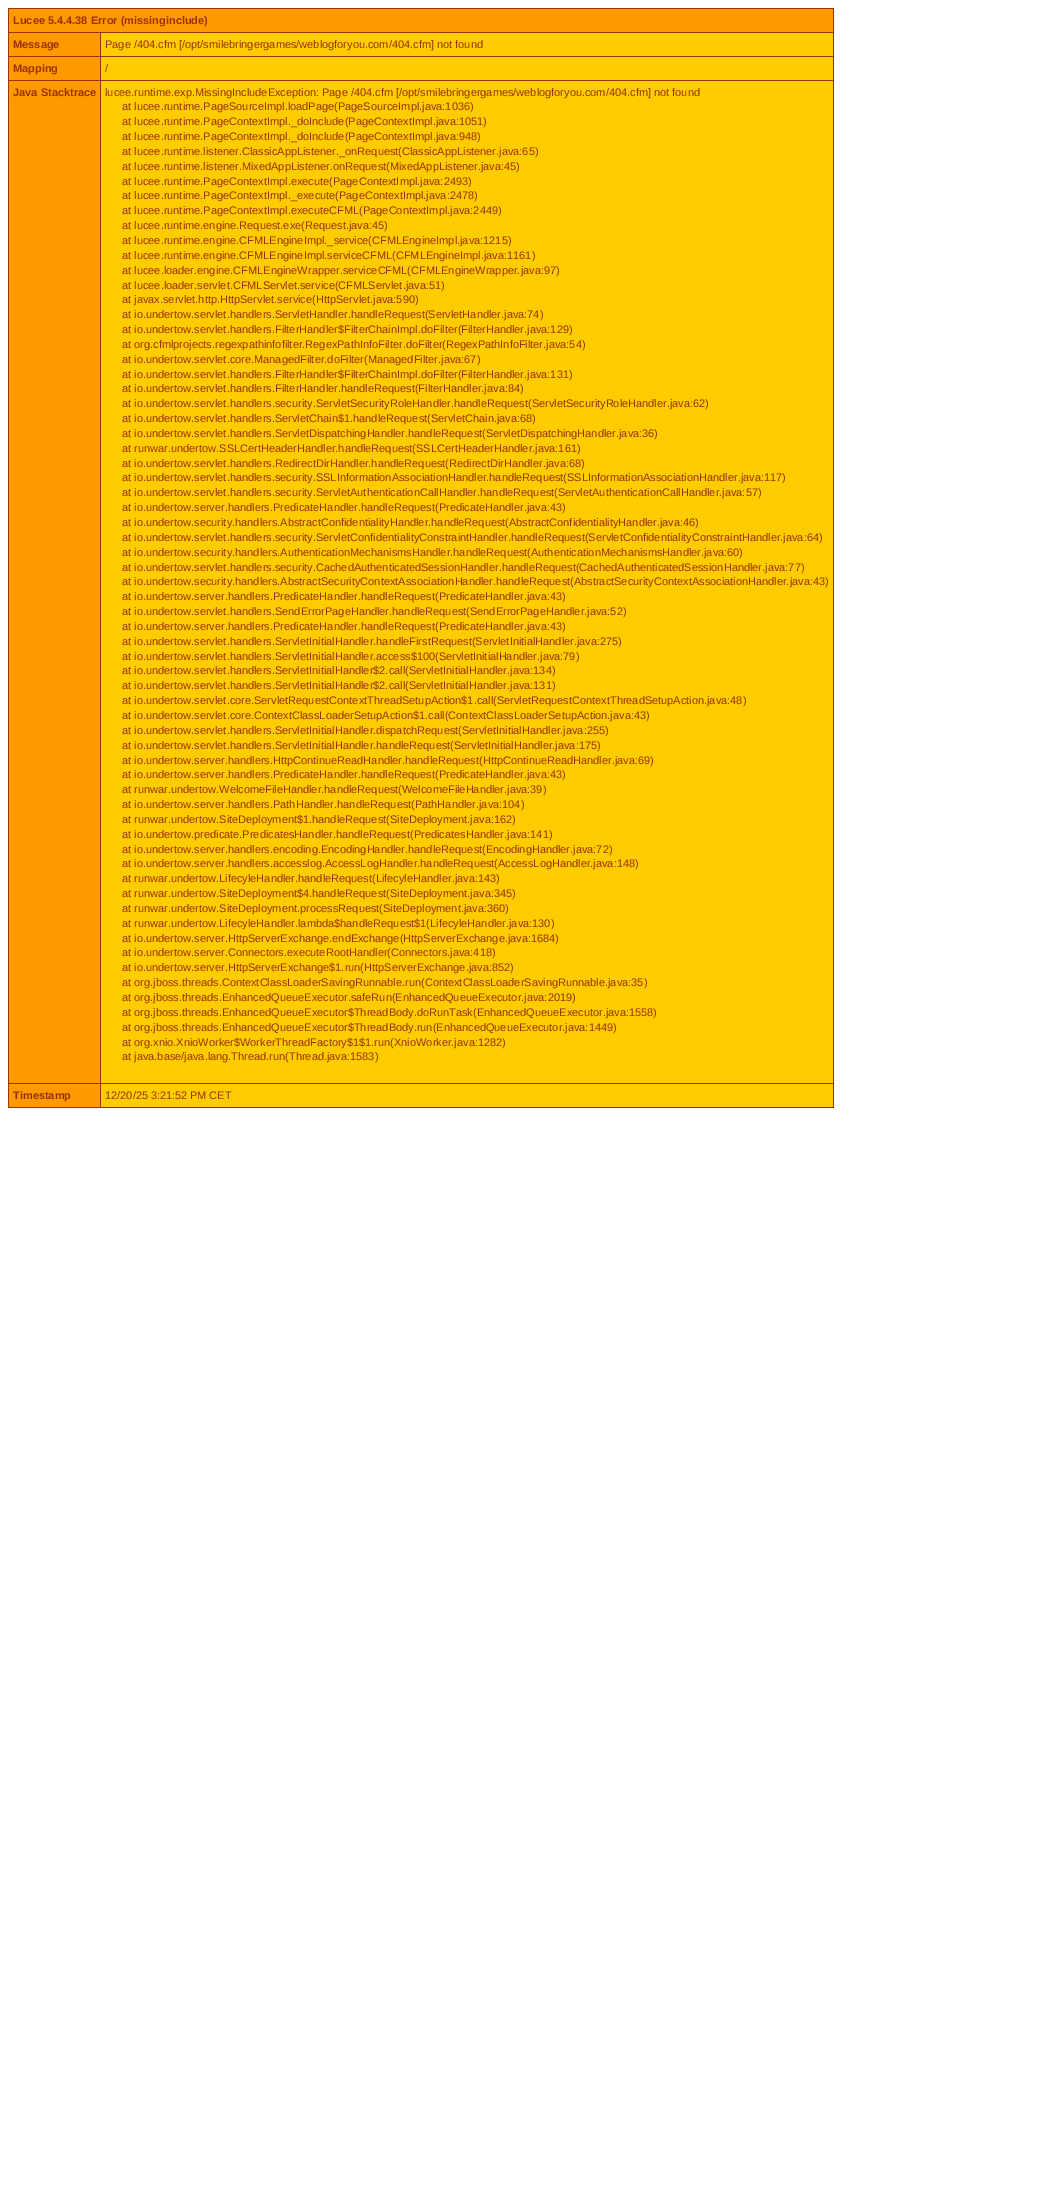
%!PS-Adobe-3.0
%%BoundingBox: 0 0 1043 2202
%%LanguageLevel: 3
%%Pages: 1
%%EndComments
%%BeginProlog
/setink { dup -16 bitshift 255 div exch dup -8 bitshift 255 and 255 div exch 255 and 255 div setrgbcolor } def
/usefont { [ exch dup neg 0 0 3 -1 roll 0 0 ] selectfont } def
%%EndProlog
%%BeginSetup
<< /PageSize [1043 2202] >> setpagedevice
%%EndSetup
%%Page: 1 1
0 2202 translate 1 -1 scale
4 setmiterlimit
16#FFFFFF setink
0 0 1043 2202 rectfill
16#993300 setink
8 8 826 1100 rectfill
16#FF9900 setink
9 9 824 23 rectfill
/LiberationSans-Bold 11 usefont
16#993300 setink
13 24 moveto (Lucee 5.4.4.38 Error \(missinginclude\)) show
16#FF9900 setink
9 33 91 23 rectfill
16#993300 setink
13 48 moveto (Message) show
16#FFCC00 setink
101 33 732 23 rectfill
/LiberationSans-Regular 11 usefont
16#993300 setink
105 48 moveto (Page /404.cfm [/opt/smilebringergames/weblogforyou.com/404.cfm] not found) show
16#FF9900 setink
9 57 91 23 rectfill
/LiberationSans-Bold 11 usefont
16#993300 setink
13 72 moveto (Mapping) show
16#FFCC00 setink
101 57 732 23 rectfill
/LiberationSans-Regular 11 usefont
16#993300 setink
105 72 moveto (/) show
16#FF9900 setink
9 81 91 1002 rectfill
/LiberationSans-Bold 11 usefont
16#993300 setink
13 96 moveto (Java Stacktrace) show
16#FFCC00 setink
101 81 732 1002 rectfill
/LiberationSans-Regular 11 usefont
16#993300 setink
[
    [(lucee.runtime.exp.MissingIncludeException: Page /404.cfm [/opt/smilebringergames/weblogforyou.com/404.cfm] not found) 105 96]
    [(at lucee.runtime.PageSourceImpl.loadPage\(PageSourceImpl.java:1036\)) 122 110]
    [(at lucee.runtime.PageContextImpl._doInclude\(PageContextImpl.java:1051\)) 122 125]
    [(at lucee.runtime.PageContextImpl._doInclude\(PageContextImpl.java:948\)) 122 140]
    [(at lucee.runtime.listener.ClassicAppListener._onRequest\(ClassicAppListener.java:65\)) 122 155]
    [(at lucee.runtime.listener.MixedAppListener.onRequest\(MixedAppListener.java:45\)) 122 170]
    [(at lucee.runtime.PageContextImpl.execute\(PageContextImpl.java:2493\)) 122 185]
    [(at lucee.runtime.PageContextImpl._execute\(PageContextImpl.java:2478\)) 122 199]
    [(at lucee.runtime.PageContextImpl.executeCFML\(PageContextImpl.java:2449\)) 122 214]
    [(at lucee.runtime.engine.Request.exe\(Request.java:45\)) 122 229]
    [(at lucee.runtime.engine.CFMLEngineImpl._service\(CFMLEngineImpl.java:1215\)) 122 244]
    [(at lucee.runtime.engine.CFMLEngineImpl.serviceCFML\(CFMLEngineImpl.java:1161\)) 122 259]
    [(at lucee.loader.engine.CFMLEngineWrapper.serviceCFML\(CFMLEngineWrapper.java:97\)) 122 274]
    [(at lucee.loader.servlet.CFMLServlet.service\(CFMLServlet.java:51\)) 122 289]
    [(at javax.servlet.http.HttpServlet.service\(HttpServlet.java:590\)) 122 303]
    [(at io.undertow.servlet.handlers.ServletHandler.handleRequest\(ServletHandler.java:74\)) 122 318]
    [(at io.undertow.servlet.handlers.FilterHandler$FilterChainImpl.doFilter\(FilterHandler.java:129\)) 122 333]
    [(at org.cfmlprojects.regexpathinfofilter.RegexPathInfoFilter.doFilter\(RegexPathInfoFilter.java:54\)) 122 348]
    [(at io.undertow.servlet.core.ManagedFilter.doFilter\(ManagedFilter.java:67\)) 122 363]
    [(at io.undertow.servlet.handlers.FilterHandler$FilterChainImpl.doFilter\(FilterHandler.java:131\)) 122 378]
    [(at io.undertow.servlet.handlers.FilterHandler.handleRequest\(FilterHandler.java:84\)) 122 392]
    [(at io.undertow.servlet.handlers.security.ServletSecurityRoleHandler.handleRequest\(ServletSecurityRoleHandler.java:62\)) 122 407]
    [(at io.undertow.servlet.handlers.ServletChain$1.handleRequest\(ServletChain.java:68\)) 122 422]
    [(at io.undertow.servlet.handlers.ServletDispatchingHandler.handleRequest\(ServletDispatchingHandler.java:36\)) 122 437]
    [(at runwar.undertow.SSLCertHeaderHandler.handleRequest\(SSLCertHeaderHandler.java:161\)) 122 452]
    [(at io.undertow.servlet.handlers.RedirectDirHandler.handleRequest\(RedirectDirHandler.java:68\)) 122 467]
    [(at io.undertow.servlet.handlers.security.SSLInformationAssociationHandler.handleRequest\(SSLInformationAssociationHandler.java:117\)) 122 481]
    [(at io.undertow.servlet.handlers.security.ServletAuthenticationCallHandler.handleRequest\(ServletAuthenticationCallHandler.java:57\)) 122 496]
    [(at io.undertow.server.handlers.PredicateHandler.handleRequest\(PredicateHandler.java:43\)) 122 511]
    [(at io.undertow.security.handlers.AbstractConfidentialityHandler.handleRequest\(AbstractConfidentialityHandler.java:46\)) 122 526]
    [(at io.undertow.servlet.handlers.security.ServletConfidentialityConstraintHandler.handleRequest\(ServletConfidentialityConstraintHandler.java:64\)) 122 541]
    [(at io.undertow.security.handlers.AuthenticationMechanismsHandler.handleRequest\(AuthenticationMechanismsHandler.java:60\)) 122 556]
    [(at io.undertow.servlet.handlers.security.CachedAuthenticatedSessionHandler.handleRequest\(CachedAuthenticatedSessionHandler.java:77\)) 122 571]
    [(at io.undertow.security.handlers.AbstractSecurityContextAssociationHandler.handleRequest\(AbstractSecurityContextAssociationHandler.java:43\)) 122 585]
    [(at io.undertow.server.handlers.PredicateHandler.handleRequest\(PredicateHandler.java:43\)) 122 600]
    [(at io.undertow.servlet.handlers.SendErrorPageHandler.handleRequest\(SendErrorPageHandler.java:52\)) 122 615]
    [(at io.undertow.server.handlers.PredicateHandler.handleRequest\(PredicateHandler.java:43\)) 122 630]
    [(at io.undertow.servlet.handlers.ServletInitialHandler.handleFirstRequest\(ServletInitialHandler.java:275\)) 122 645]
    [(at io.undertow.servlet.handlers.ServletInitialHandler.access$100\(ServletInitialHandler.java:79\)) 122 660]
    [(at io.undertow.servlet.handlers.ServletInitialHandler$2.call\(ServletInitialHandler.java:134\)) 122 674]
    [(at io.undertow.servlet.handlers.ServletInitialHandler$2.call\(ServletInitialHandler.java:131\)) 122 689]
    [(at io.undertow.servlet.core.ServletRequestContextThreadSetupAction$1.call\(ServletRequestContextThreadSetupAction.java:48\)) 122 704]
    [(at io.undertow.servlet.core.ContextClassLoaderSetupAction$1.call\(ContextClassLoaderSetupAction.java:43\)) 122 719]
    [(at io.undertow.servlet.handlers.ServletInitialHandler.dispatchRequest\(ServletInitialHandler.java:255\)) 122 734]
    [(at io.undertow.servlet.handlers.ServletInitialHandler.handleRequest\(ServletInitialHandler.java:175\)) 122 749]
    [(at io.undertow.server.handlers.HttpContinueReadHandler.handleRequest\(HttpContinueReadHandler.java:69\)) 122 764]
    [(at io.undertow.server.handlers.PredicateHandler.handleRequest\(PredicateHandler.java:43\)) 122 778]
    [(at runwar.undertow.WelcomeFileHandler.handleRequest\(WelcomeFileHandler.java:39\)) 122 793]
    [(at io.undertow.server.handlers.PathHandler.handleRequest\(PathHandler.java:104\)) 122 808]
    [(at runwar.undertow.SiteDeployment$1.handleRequest\(SiteDeployment.java:162\)) 122 823]
    [(at io.undertow.predicate.PredicatesHandler.handleRequest\(PredicatesHandler.java:141\)) 122 838]
    [(at io.undertow.server.handlers.encoding.EncodingHandler.handleRequest\(EncodingHandler.java:72\)) 122 853]
    [(at io.undertow.server.handlers.accesslog.AccessLogHandler.handleRequest\(AccessLogHandler.java:148\)) 122 867]
    [(at runwar.undertow.LifecyleHandler.handleRequest\(LifecyleHandler.java:143\)) 122 882]
    [(at runwar.undertow.SiteDeployment$4.handleRequest\(SiteDeployment.java:345\)) 122 897]
    [(at runwar.undertow.SiteDeployment.processRequest\(SiteDeployment.java:360\)) 122 912]
    [(at runwar.undertow.LifecyleHandler.lambda$handleRequest$1\(LifecyleHandler.java:130\)) 122 927]
    [(at io.undertow.server.HttpServerExchange.endExchange\(HttpServerExchange.java:1684\)) 122 942]
    [(at io.undertow.server.Connectors.executeRootHandler\(Connectors.java:418\)) 122 956]
    [(at io.undertow.server.HttpServerExchange$1.run\(HttpServerExchange.java:852\)) 122 971]
    [(at org.jboss.threads.ContextClassLoaderSavingRunnable.run\(ContextClassLoaderSavingRunnable.java:35\)) 122 986]
    [(at org.jboss.threads.EnhancedQueueExecutor.safeRun\(EnhancedQueueExecutor.java:2019\)) 122 1001]
    [(at org.jboss.threads.EnhancedQueueExecutor$ThreadBody.doRunTask\(EnhancedQueueExecutor.java:1558\)) 122 1016]
    [(at org.jboss.threads.EnhancedQueueExecutor$ThreadBody.run\(EnhancedQueueExecutor.java:1449\)) 122 1031]
    [(at org.xnio.XnioWorker$WorkerThreadFactory$1$1.run\(XnioWorker.java:1282\)) 122 1046]
    [(at java.base/java.lang.Thread.run\(Thread.java:1583\)) 122 1060]
] { aload pop moveto show } forall
16#FF9900 setink
9 1084 91 23 rectfill
/LiberationSans-Bold 11 usefont
16#993300 setink
13 1099 moveto (Timestamp) show
16#FFCC00 setink
101 1084 732 23 rectfill
/LiberationSans-Regular 11 usefont
16#993300 setink
105 1099 moveto (12/20/25 3:21:52 PM CET) show
showpage
%%EOF
